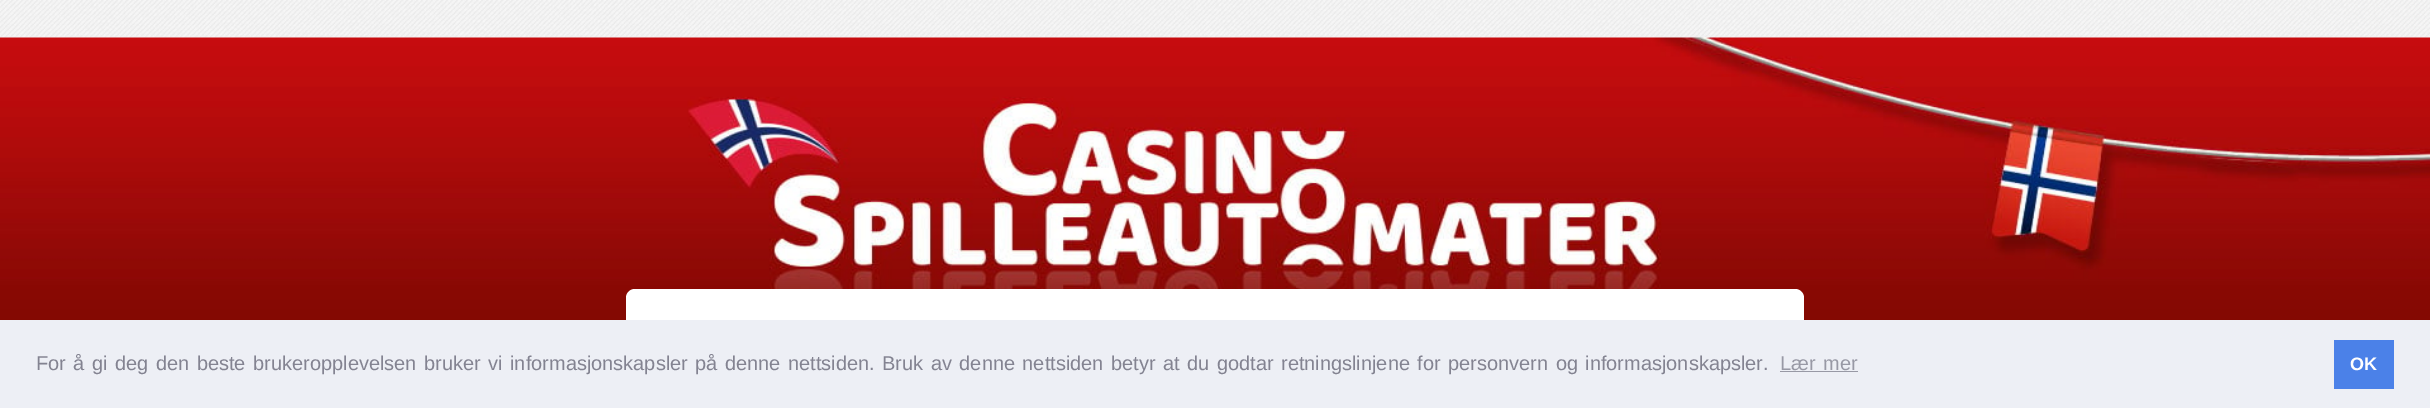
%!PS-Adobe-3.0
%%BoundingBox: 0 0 2430 408
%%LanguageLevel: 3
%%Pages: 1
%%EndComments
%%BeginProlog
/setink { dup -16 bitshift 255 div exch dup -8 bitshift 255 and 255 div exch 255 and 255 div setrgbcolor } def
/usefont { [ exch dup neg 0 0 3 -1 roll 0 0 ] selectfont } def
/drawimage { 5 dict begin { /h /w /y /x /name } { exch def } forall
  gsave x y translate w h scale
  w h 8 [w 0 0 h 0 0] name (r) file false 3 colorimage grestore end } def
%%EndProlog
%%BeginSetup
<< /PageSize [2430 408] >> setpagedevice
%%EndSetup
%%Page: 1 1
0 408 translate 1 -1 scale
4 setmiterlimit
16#FFFFFF setink
0 0 2430 408 rectfill
(img1.raw) 0 0 2430 38 drawimage
(img2.raw) 0 37 2430 283 drawimage
635 289 moveto 1795 289 lineto 1800 289 1804 293 1804 298 curveto 1804 348 lineto 626 348 lineto 626 298 lineto 626 293 630 289 635 289 curveto closepath fill
16#EDEFF5 setink
0 320 2430 88 rectfill
/LiberationSans-Regular 20 usefont
16#838391 setink
36 370 moveto 1.9 0 32 (For å gi deg den beste brukeropplevelsen bruker vi informasjonskapsler på denne nettsiden. Bruk av denne nettsiden betyr at du godtar retningslinjene for personvern og informasjonskapsler.) widthshow
16#9899A5 setink
1780 370 moveto 1.9 0 32 (Lær mer) widthshow
1780 371 78 1 rectfill
16#4B81E8 setink
2334 340 60 49 rectfill
/LiberationSans-Bold 18 usefont
16#FFFFFF setink
2350 370 moveto (OK) show
showpage
%%EOF
